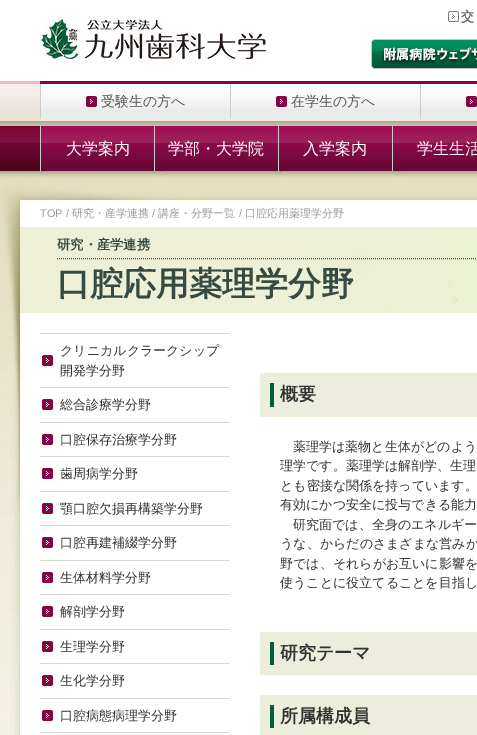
%!PS-Adobe-3.0
%%BoundingBox: 0 0 477 735
%%LanguageLevel: 3
%%Pages: 1
%%EndComments
%%BeginProlog
/setink { dup -16 bitshift 255 div exch dup -8 bitshift 255 and 255 div exch 255 and 255 div setrgbcolor } def
/usefont { [ exch dup neg 0 0 3 -1 roll 0 0 ] selectfont } def
/drawimage { 5 dict begin { /h /w /y /x /name } { exch def } forall
  gsave x y translate w h scale
  w h 8 [w 0 0 h 0 0] name (r) file false 3 colorimage grestore end } def
%%EndProlog
%%BeginSetup
<< /PageSize [477 735] >> setpagedevice
%%EndSetup
%%Page: 1 1
0 735 translate 1 -1 scale
4 setmiterlimit
16#FFFFFF setink
0 0 477 735 rectfill
(img1.raw) 40 16 230 48 drawimage
(img2.raw) 448 11 11 11 drawimage
/WenQuanYiZenHei-Bold 13 usefont
16#666666 setink
461 21 moveto (交) show
(img3.raw) 371 39 106 30 drawimage
(img4.raw) 0 121 477 5 drawimage
16#EAE4D4 setink
0 113 40 8 rectfill
(img5.raw) 0 81 40 32 drawimage
16#E9EBE9 setink
40 109 437 12 rectfill
(img6.raw) 40 81 437 28 drawimage
16#CCCCCC setink
40 84 1 35 rectfill
(img7.raw) 86 96 11 11 drawimage
/WenQuanYiZenHei-Medium 14 usefont
16#555555 setink
101 106 moveto (受験生の方へ) show
16#CCCCCC setink
230 84 1 35 rectfill
(img7.raw) 276 96 11 11 drawimage
16#555555 setink
291 106 moveto (在学生の方へ) show
16#CCCCCC setink
420 84 1 35 rectfill
(img7.raw) 466 96 11 11 drawimage
16#50041A setink
0 164 40 7 rectfill
(img8.raw) 0 126 40 38 drawimage
16#690835 setink
41 163 113 8 rectfill
(img9.raw) 41 126 113 37 drawimage
16#CCCCCC setink
40 126 1 45 rectfill
/WenQuanYiZenHei-Medium 16 usefont
16#FFFFFF setink
66 154 moveto (大学案内) show
16#690835 setink
155 163 123 8 rectfill
(img10.raw) 155 126 123 37 drawimage
16#CCCCCC setink
154 126 1 45 rectfill
16#FFFFFF setink
168 154 moveto (学部・大学院) show
16#690835 setink
279 163 113 8 rectfill
(img9.raw) 279 126 113 37 drawimage
16#CCCCCC setink
278 126 1 45 rectfill
16#FFFFFF setink
303 154 moveto (入学案内) show
16#690835 setink
393 163 84 8 rectfill
(img11.raw) 393 126 84 37 drawimage
16#CCCCCC setink
392 126 1 45 rectfill
16#FFFFFF setink
417 154 moveto (学生生活) show
(img12.raw) 0 171 477 564 drawimage
/LiberationSans-Regular 11 usefont
16#999999 setink
40 217 moveto (TOP /) show
/WenQuanYiZenHei-Medium 11 usefont
72 217 moveto (研究・産学連携) show
/LiberationSans-Regular 11 usefont
152 217 moveto (/) show
/WenQuanYiZenHei-Medium 11 usefont
158 217 moveto (講座・分野一覧) show
/LiberationSans-Regular 11 usefont
239 217 moveto (/) show
/WenQuanYiZenHei-Medium 11 usefont
245 217 moveto (口腔応用薬理学分野) show
(img13.raw) 20 227 457 86 drawimage
16#364A42 setink
[1 1] 0 setdash
57 258.5 moveto 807 258.5 lineto stroke
/WenQuanYiZenHei-Bold 13.25 usefont
57 249 moveto (研究・産学連携) show
/WenQuanYiZenHei-Bold 33 usefont
57 295 moveto (口腔応用薬理学分野) show
16#D6D9D3 setink
40 333 190 1 rectfill
40 387 190 1 rectfill
(img7.raw) 42 355 11 11 drawimage
/WenQuanYiZenHei-Medium 13 usefont
16#333333 setink
60 355 moveto (クリニカルクラークシップ) show
60 375 moveto (開発学分野) show
16#D6D9D3 setink
40 422 190 1 rectfill
(img7.raw) 42 399 11 11 drawimage
16#333333 setink
60 409 moveto (総合診療学分野) show
16#D6D9D3 setink
40 456 190 1 rectfill
(img7.raw) 42 434 11 11 drawimage
16#333333 setink
60 444 moveto (口腔保存治療学分野) show
16#D6D9D3 setink
40 491 190 1 rectfill
(img7.raw) 42 468 11 11 drawimage
16#333333 setink
60 478 moveto (歯周病学分野) show
16#D6D9D3 setink
40 525 190 1 rectfill
(img7.raw) 42 503 11 11 drawimage
16#333333 setink
60 513 moveto (顎口腔欠損再構築学分野) show
16#D6D9D3 setink
40 560 190 1 rectfill
(img7.raw) 42 537 11 11 drawimage
16#333333 setink
60 547 moveto (口腔再建補綴学分野) show
16#D6D9D3 setink
40 594 190 1 rectfill
(img7.raw) 42 572 11 11 drawimage
16#333333 setink
60 582 moveto (生体材料学分野) show
16#D6D9D3 setink
40 629 190 1 rectfill
(img7.raw) 42 606 11 11 drawimage
16#333333 setink
60 616 moveto (解剖学分野) show
16#D6D9D3 setink
40 663 190 1 rectfill
(img7.raw) 42 641 11 11 drawimage
16#333333 setink
60 651 moveto (生理学分野) show
16#D6D9D3 setink
40 698 190 1 rectfill
(img7.raw) 42 675 11 11 drawimage
16#333333 setink
60 685 moveto (生化学分野) show
16#D6D9D3 setink
40 732 190 1 rectfill
(img7.raw) 42 710 11 11 drawimage
16#333333 setink
60 720 moveto (口腔病態病理学分野) show
16#ECEDDD setink
260 373 217 44 rectfill
16#005D3D setink
270 383 4 24 rectfill
/WenQuanYiZenHei-Bold 18 usefont
16#333333 setink
280 400 moveto (概要) show
/WenQuanYiZenHei-Medium 13 usefont
[
    [(薬理学は薬物と生体がどのよう) 293 451]
    [(理学です。薬理学は解剖学、生理) 280 470]
    [(とも密接な関係を持っています。) 280 490]
    [(有効にかつ安全に投与できる能力) 280 509]
    [(研究面では、全身のエネルギー) 293 529]
    [(うな、からだのさまざまな営みが) 280 548]
    [(野では、それらがお互いに影響を) 280 568]
    [(使うことに役立てることを目指し) 280 587]
] { aload pop moveto show } forall
16#ECEDDD setink
260 632 217 43 rectfill
16#005D3D setink
270 642 4 23 rectfill
/WenQuanYiZenHei-Bold 18 usefont
16#333333 setink
280 659 moveto (研究テーマ) show
16#ECEDDD setink
260 695 217 40 rectfill
16#005D3D setink
270 705 4 23 rectfill
16#333333 setink
280 722 moveto (所属構成員) show
showpage
%%EOF
